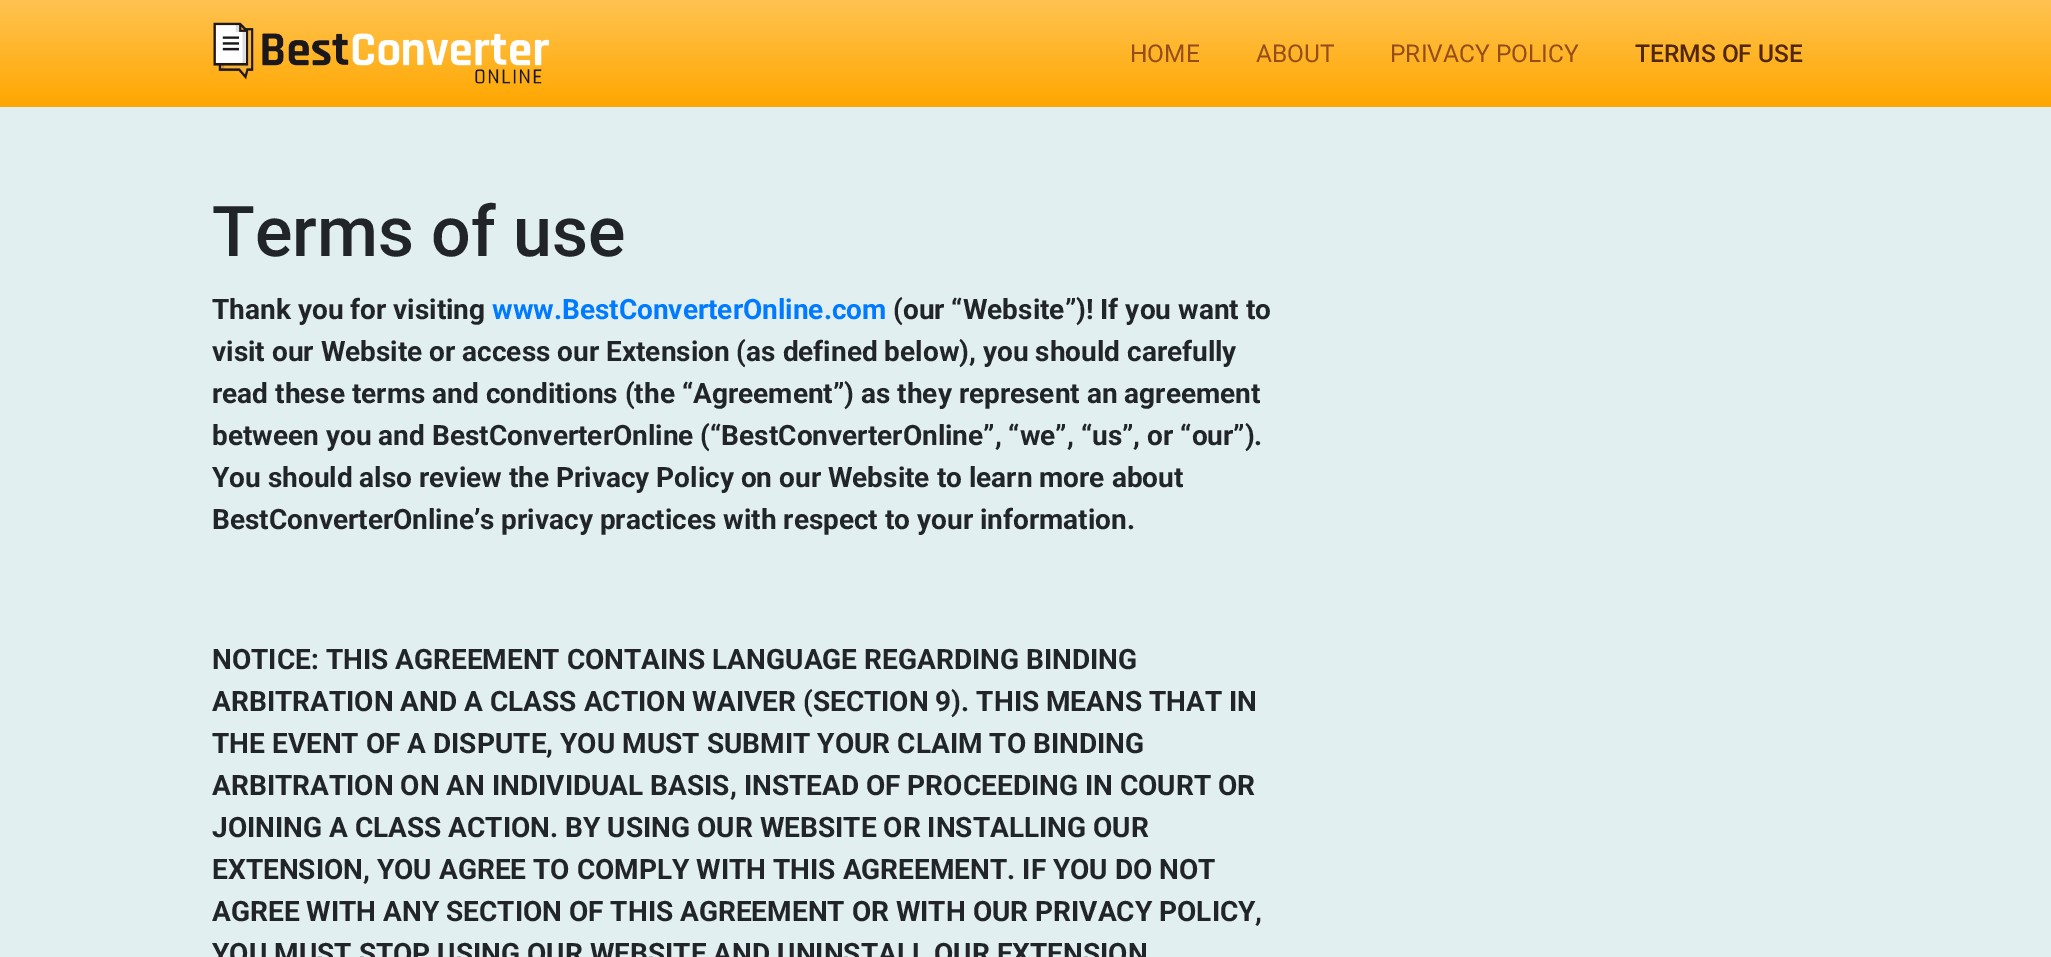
%!PS-Adobe-3.0
%%BoundingBox: 0 0 2051 957
%%LanguageLevel: 3
%%Pages: 1
%%EndComments
%%BeginProlog
/setink { dup -16 bitshift 255 div exch dup -8 bitshift 255 and 255 div exch 255 and 255 div setrgbcolor } def
/usefont { [ exch dup neg 0 0 3 -1 roll 0 0 ] selectfont } def
/drawimage { 5 dict begin { /h /w /y /x /name } { exch def } forall
  gsave x y translate w h scale
  w h 8 [w 0 0 h 0 0] name (r) file false 3 colorimage grestore end } def
%%EndProlog
%%BeginSetup
<< /PageSize [2051 957] >> setpagedevice
%%EndSetup
%%Page: 1 1
0 957 translate 1 -1 scale
4 setmiterlimit
16#E1EFF0 setink
0 0 2051 957 rectfill
gsave 0 0 moveto 2051 0 lineto 2051 107 lineto 0 107 lineto closepath clip newpath
<< /ShadingType 2 /ColorSpace /DeviceRGB /Coords [1026 0 1026 107] /Extend [true true] /Function << /FunctionType 2 /Domain [0 1] /C0 [1 0.765 0.318] /C1 [1 0.655 0] /N 1 >> >> shfill grestore
(img1.raw) 213 22 336 62 drawimage
/Roboto-Regular 24.5 usefont
16#954E1B setink
[
    [(HOME) 1130 62]
    [(ABOUT) 1256 62]
    [(PRIVACY POLICY) 1390 62]
] { aload pop moveto show } forall
/Roboto-Medium 24.5 usefont
16#502709 setink
1635 62 moveto (TERMS OF USE) show
/Roboto-Medium 70 usefont
16#212529 setink
212 256 moveto (Terms of use) show
/Roboto-Bold 28 usefont
212 319 moveto (Thank you for visiting) show
16#007BFF setink
492 319 moveto (www.BestConverterOnline.com) show
16#212529 setink
[
    [(\(our “Website”\)! If you want to) 893 319]
    [(visit our Website or access our Extension \(as defined below\), you should carefully) 212 361]
    [(read these terms and conditions \(the “Agreement”\) as they represent an agreement) 212 403]
    [(between you and BestConverterOnline \(“BestConverterOnline”, “we”, “us”, or “our”\).) 212 445]
    [(You should also review the Privacy Policy on our Website to learn more about) 212 487]
    [(BestConverterOnline’s privacy practices with respect to your information.) 212 529]
    [(NOTICE: THIS AGREEMENT CONTAINS LANGUAGE REGARDING BINDING) 212 669]
    [(ARBITRATION AND A CLASS ACTION WAIVER \(SECTION 9\). THIS MEANS THAT IN) 212 711]
    [(THE EVENT OF A DISPUTE, YOU MUST SUBMIT YOUR CLAIM TO BINDING) 212 753]
    [(ARBITRATION ON AN INDIVIDUAL BASIS, INSTEAD OF PROCEEDING IN COURT OR) 212 795]
    [(JOINING A CLASS ACTION. BY USING OUR WEBSITE OR INSTALLING OUR) 212 837]
    [(EXTENSION, YOU AGREE TO COMPLY WITH THIS AGREEMENT. IF YOU DO NOT) 212 879]
    [(AGREE WITH ANY SECTION OF THIS AGREEMENT OR WITH OUR PRIVACY POLICY,) 212 921]
    [(YOU MUST STOP USING OUR WEBSITE AND UNINSTALL OUR EXTENSION) 212 963]
] { aload pop moveto show } forall
showpage
%%EOF
